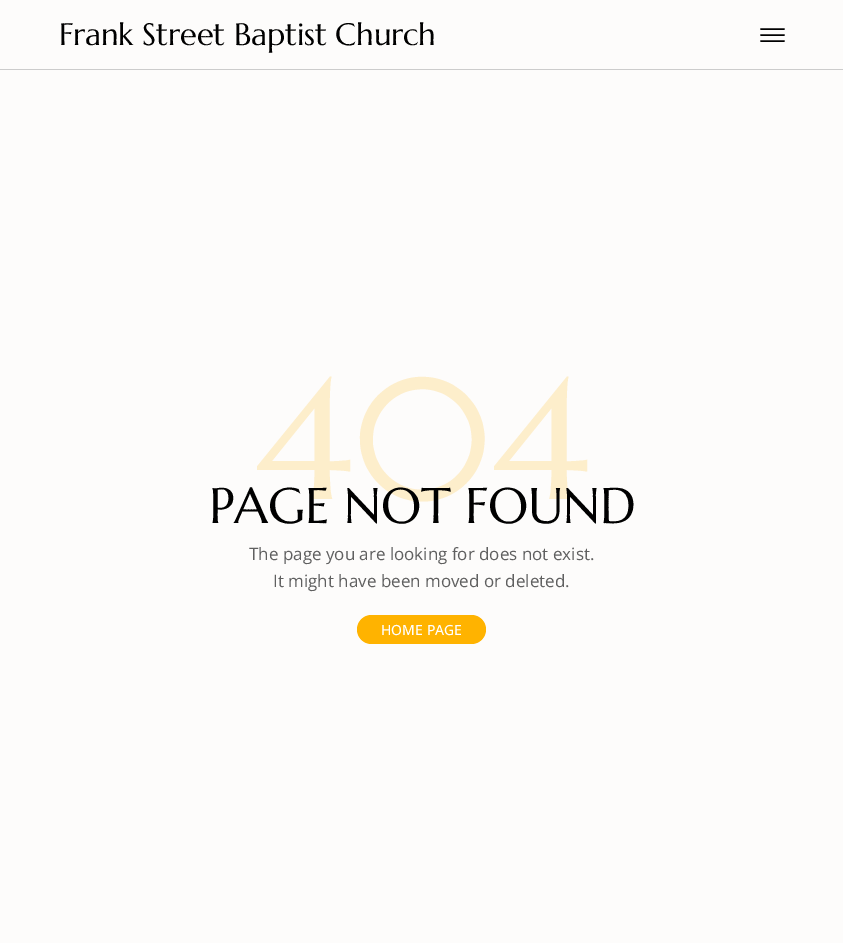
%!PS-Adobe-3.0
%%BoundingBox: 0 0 843 943
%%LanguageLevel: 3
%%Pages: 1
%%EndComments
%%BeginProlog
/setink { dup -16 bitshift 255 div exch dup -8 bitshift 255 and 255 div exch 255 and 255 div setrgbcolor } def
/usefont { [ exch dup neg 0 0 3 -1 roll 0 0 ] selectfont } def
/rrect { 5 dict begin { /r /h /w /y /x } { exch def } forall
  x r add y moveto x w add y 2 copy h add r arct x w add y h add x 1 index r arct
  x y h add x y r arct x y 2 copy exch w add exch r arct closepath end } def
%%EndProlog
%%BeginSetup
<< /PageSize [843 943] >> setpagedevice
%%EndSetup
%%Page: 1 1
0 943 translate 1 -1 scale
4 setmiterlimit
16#FDFCFB setink
0 0 843 943 rectfill
16#CCCCCC setink
0 69 843 1 rectfill
/Marcellus-Regular 31 usefont
16#000000 setink
59 45 moveto -0.2 0 (Frank Street Baptist Church) ashow
1.5 setlinewidth
1 setlinecap
761 29 moveto 784 29 lineto 761 35 moveto 784 35 lineto 761 41 moveto 784 41 lineto stroke
/Marcellus-Regular 172 usefont
16#FDEECB setink
254 499 moveto (404) show
/Marcellus-Regular 50 usefont
16#000000 setink
209 523 moveto -0.25 0 (PAGE NOT FOUND) ashow
/OpenSans-Regular 17 usefont
16#606060 setink
249 560 moveto (The page you are looking for does not exist.) show
273 587 moveto (It might have been moved or deleted.) show
16#FFB300 setink
357 615 129 29 14.5 rrect fill
/OpenSans-Medium 14 usefont
16#FFFFFF setink
381 635 moveto (HOME PAGE) show
showpage
%%EOF
